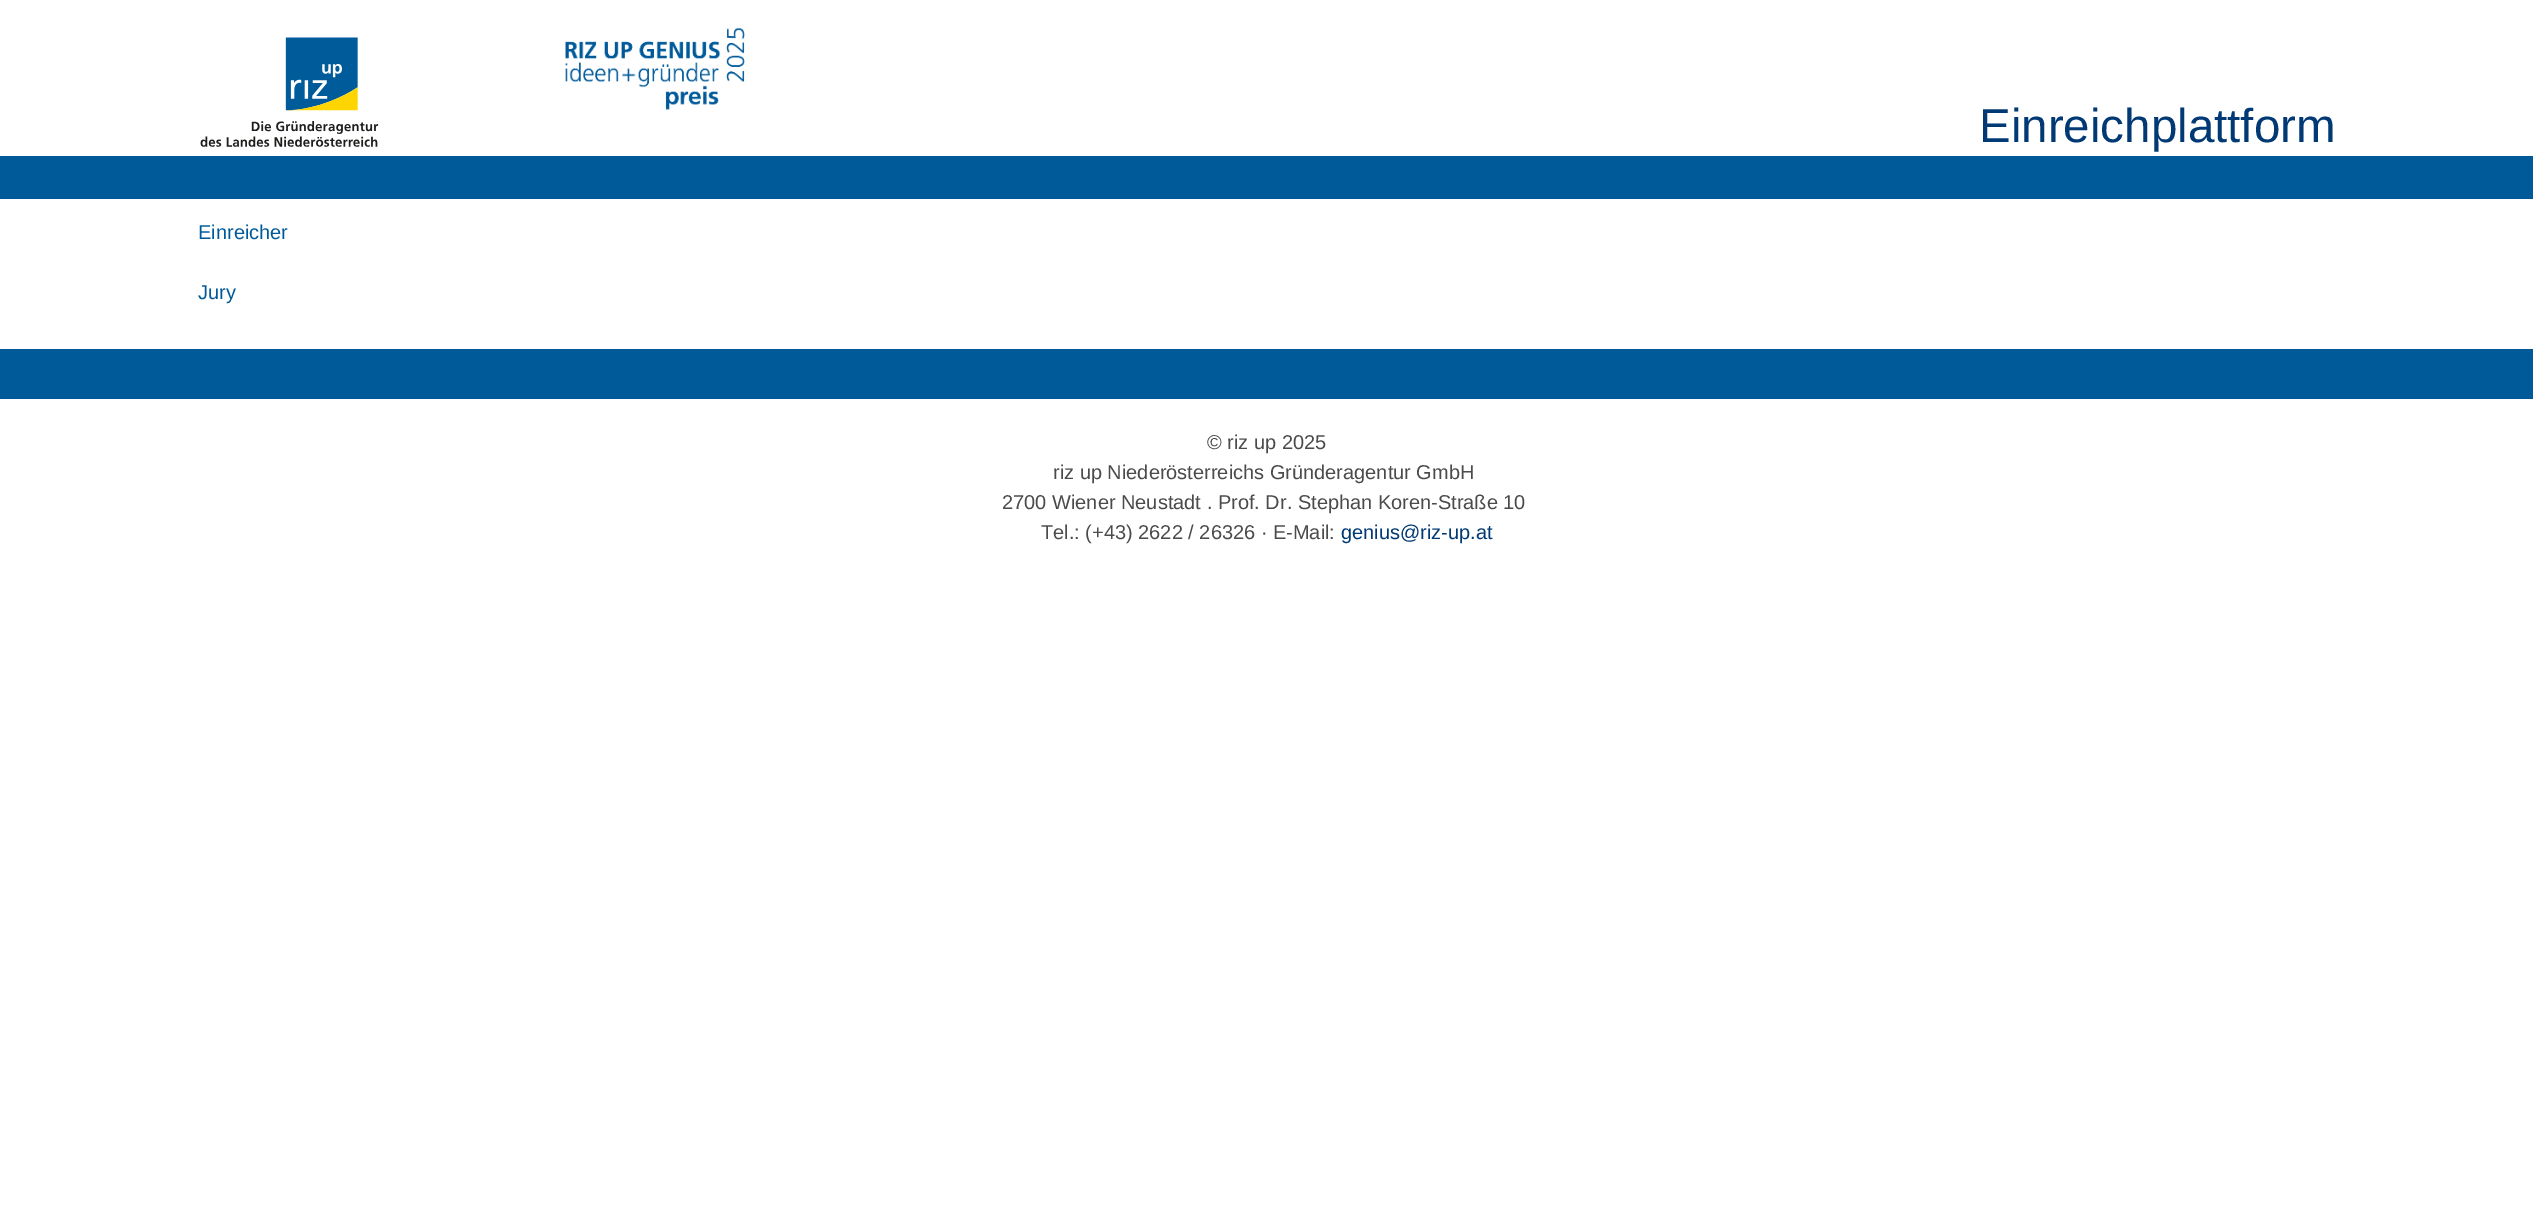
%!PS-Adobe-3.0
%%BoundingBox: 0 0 2533 1213
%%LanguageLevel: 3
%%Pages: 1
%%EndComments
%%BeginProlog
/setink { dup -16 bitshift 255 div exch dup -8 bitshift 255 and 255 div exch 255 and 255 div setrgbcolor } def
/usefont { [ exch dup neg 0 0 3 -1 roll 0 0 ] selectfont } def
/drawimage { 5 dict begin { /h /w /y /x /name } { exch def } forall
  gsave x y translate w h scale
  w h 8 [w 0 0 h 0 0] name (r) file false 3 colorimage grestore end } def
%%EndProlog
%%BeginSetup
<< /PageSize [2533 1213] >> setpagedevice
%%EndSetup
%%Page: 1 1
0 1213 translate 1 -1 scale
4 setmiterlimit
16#FFFFFF setink
0 0 2533 1213 rectfill
(img1.raw) 200 37 179 110 drawimage
(img2.raw) 565 27 180 83 drawimage
/LiberationSans-Regular 47.5 usefont
16#003973 setink
1979 142 moveto (Einreichplattform) show
16#005A9A setink
0 156 2533 43 rectfill
/LiberationSans-Regular 20 usefont
198 239 moveto (Einreicher) show
198 299 moveto (Jury) show
0 349 2533 50 rectfill
16#4B4B4B setink
[
    [(© riz up 2025) 1207 449]
    [(riz up Niederösterreichs Gründeragentur GmbH) 1053 479]
    [(2700 Wiener Neustadt . Prof. Dr. Stephan Koren-Straße 10) 1002 509]
    [(Tel.: \(+43\) 2622 / 26326 · E-Mail:) 1041 539]
] { aload pop moveto show } forall
16#003973 setink
1341 539 moveto (genius@riz-up.at) show
showpage
%%EOF
